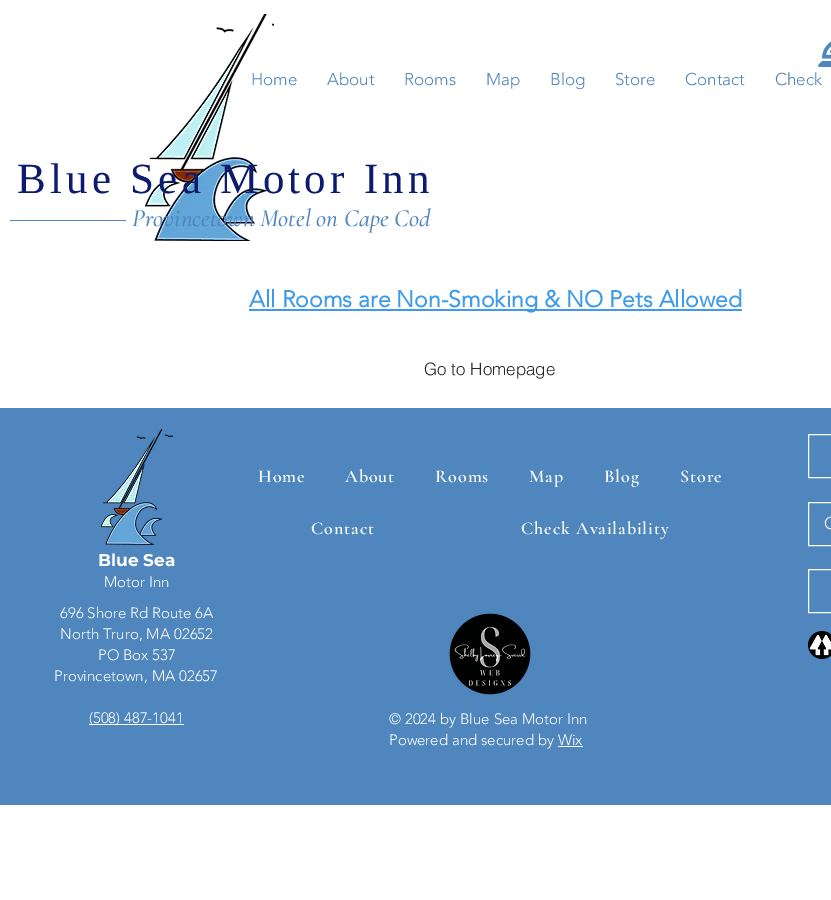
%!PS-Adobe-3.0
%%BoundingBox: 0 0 831 900
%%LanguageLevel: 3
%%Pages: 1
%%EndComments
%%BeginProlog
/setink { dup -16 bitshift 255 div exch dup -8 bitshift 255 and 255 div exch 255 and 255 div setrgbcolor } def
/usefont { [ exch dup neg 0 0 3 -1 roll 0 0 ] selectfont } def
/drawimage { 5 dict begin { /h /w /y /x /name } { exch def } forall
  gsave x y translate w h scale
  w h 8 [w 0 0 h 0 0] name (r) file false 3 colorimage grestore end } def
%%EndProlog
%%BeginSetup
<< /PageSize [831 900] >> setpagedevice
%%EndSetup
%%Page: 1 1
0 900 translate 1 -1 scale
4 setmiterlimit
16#FFFFFF setink
0 0 831 900 rectfill
(img1.raw) 145 14 129 227 drawimage
(img2.raw) 818 41 13 26 drawimage
/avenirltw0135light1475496-Light 17 usefont
16#4F86BD setink
[
    [(Home) 251 85]
    [(About) 327 85]
    [(Rooms) 404 85]
    [(Map) 486 85]
    [(Blog) 550 85]
    [(Store) 615 85]
    [(Contact) 685 85]
    [(Check) 775 85]
] { aload pop moveto show } forall
/LiberationSerif-Regular 43 usefont
16#0C1B70 setink
17 193 moveto 4.25 0 (Blue Sea Motor Inn) ashow
16#4F86BD setink
10 220 116 1 rectfill
/CormorantGaramond-MediumItalic 25 usefont
132 226 moveto (Provincetown Motel on Cape Cod) show
16#3D9BE9 setink
249 309 493 2 rectfill
/avenirltw0135light1475496-Bold 23 usefont
249 307 moveto (All Rooms are Non-Smoking & NO Pets Allowed) show
/helvetica-Light 17 usefont
16#282626 setink
424 375 moveto (Go to Homepage) show
16#4F86BD setink
0 408 831 397 rectfill
(img3.raw) 101 429 72 116 drawimage
/Montserrat-Bold 17 usefont
16#FFFFFF setink
98 566 moveto (Blue Sea) show
/avenirltw0135light1475496-Light 15 usefont
[
    [(Motor Inn) 104 587]
    [(696 Shore Rd Route 6A) 60 618]
    [(North Truro, MA 02652) 60 639]
    [(PO Box 537) 98 660]
    [(Provincetown, MA 02657) 54 681]
] { aload pop moveto show } forall
89 724 95 1 rectfill
89 723 moveto (\(508\) 487-1041) show
808.5 434.5 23 43 rectstroke
/CormorantGaramond-SemiBold 18 usefont
258 482 moveto 0.9 0 (Home) ashow
345 482 moveto 0.9 0 (About) ashow
435 482 moveto 0.9 0 (Rooms) ashow
529 482 moveto 0.9 0 (Map) ashow
604 482 moveto 0.9 0 (Blog) ashow
680 482 moveto 0.9 0 (Store) ashow
311 534 moveto 0.9 0 (Contact) ashow
521 534 moveto 0.9 0 (Check Availability) ashow
808.5 502.5 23 43 rectstroke
/avenirltw0135light1475496-Light 17 usefont
824 529 moveto (C) show
808.5 569.5 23 43 rectstroke
(img4.raw) 449 613 82 82 drawimage
(img5.raw) 808 631 23 28 drawimage
/avenirltw0135light1475496-Light 15 usefont
389 724 moveto (© 2024 by Blue Sea Motor Inn) show
389 745 moveto (Powered and secured by Wix) show
558 746 25 1 rectfill
showpage
%%EOF
